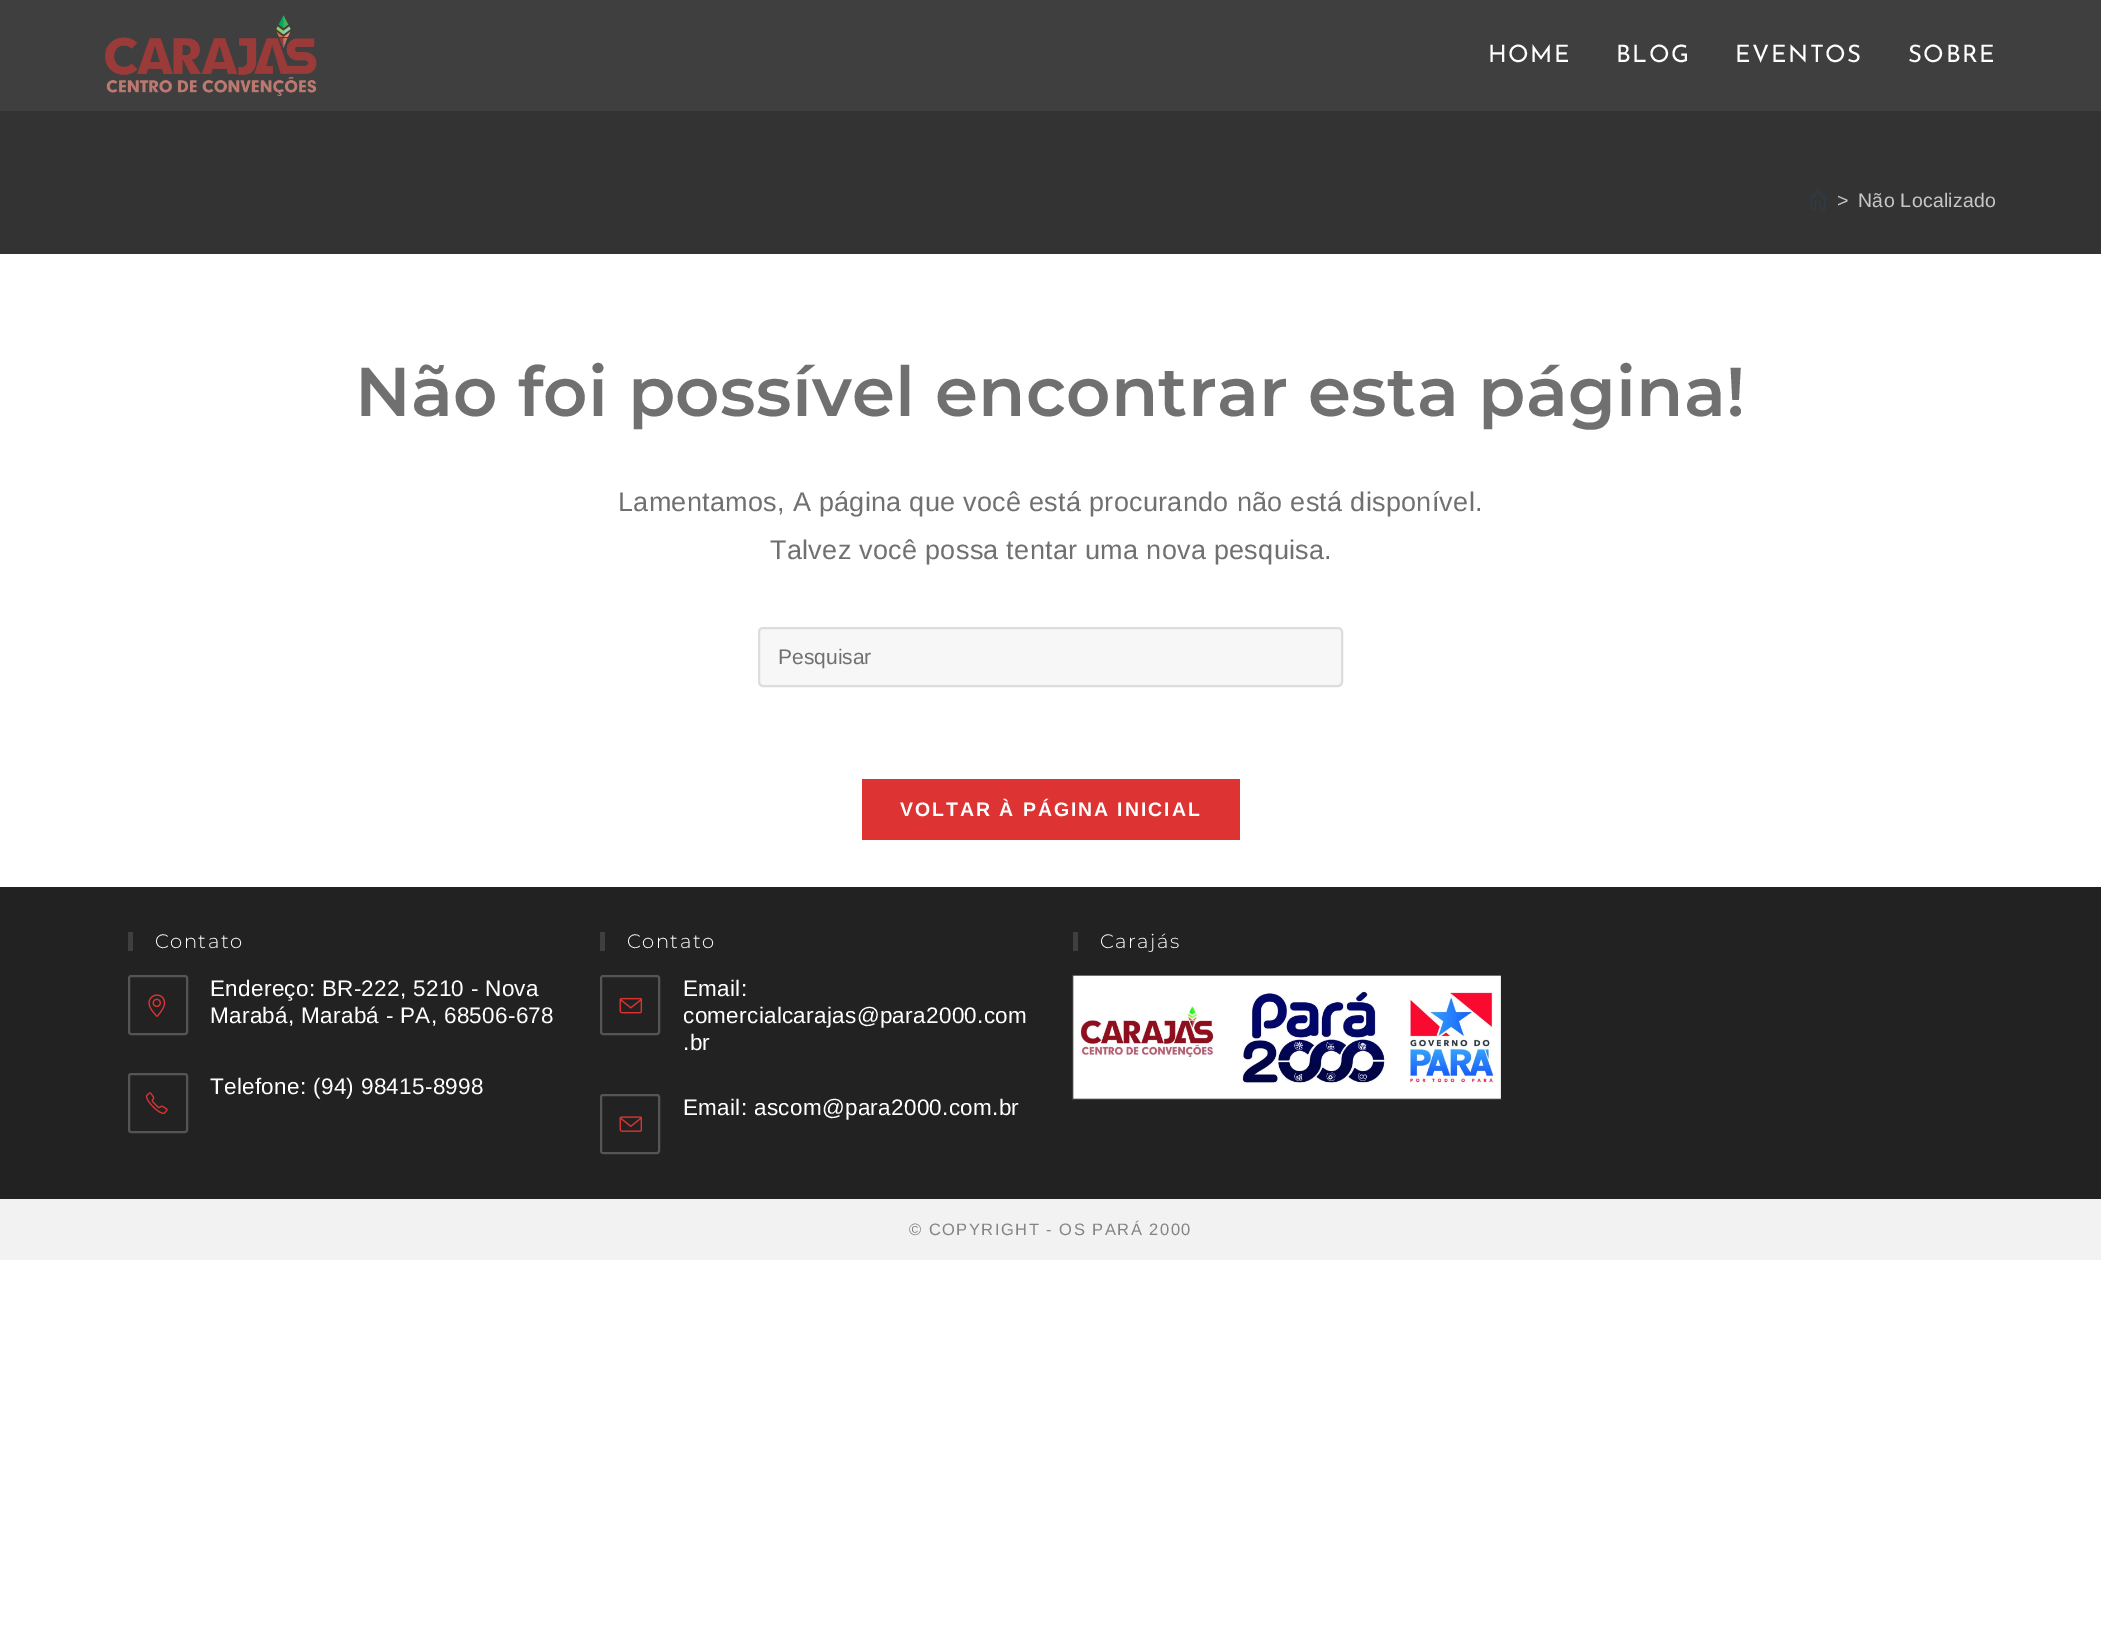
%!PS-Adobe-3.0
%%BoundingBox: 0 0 2101 1638
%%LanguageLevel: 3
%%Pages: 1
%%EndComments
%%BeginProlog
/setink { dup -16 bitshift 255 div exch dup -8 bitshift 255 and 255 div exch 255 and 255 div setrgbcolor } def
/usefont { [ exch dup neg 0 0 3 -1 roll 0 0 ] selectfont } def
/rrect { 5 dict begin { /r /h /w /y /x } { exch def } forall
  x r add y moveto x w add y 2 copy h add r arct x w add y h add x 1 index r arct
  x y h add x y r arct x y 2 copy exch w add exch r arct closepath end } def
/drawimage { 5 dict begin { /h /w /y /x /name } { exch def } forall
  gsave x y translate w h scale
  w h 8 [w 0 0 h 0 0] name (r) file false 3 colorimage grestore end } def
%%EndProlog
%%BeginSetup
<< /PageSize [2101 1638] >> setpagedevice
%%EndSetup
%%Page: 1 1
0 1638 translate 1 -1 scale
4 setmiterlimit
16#FFFFFF setink
0 0 2101 1638 rectfill
16#3F3F3F setink
0 0 2101 111 rectfill
(img1.raw) 105 15 212 81 drawimage
/JosefinSans-Regular 24 usefont
16#FFFFFF setink
1488 62 moveto 1.5 0 (HOME) ashow
1616 62 moveto 1.5 0 (BLOG) ashow
1735 62 moveto 1.5 0 (EVENTOS) ashow
1908 62 moveto 1.5 0 (SOBRE) ashow
16#333333 setink
0 111 2101 143 rectfill
(img2.raw) 1809 189 18 21 drawimage
/LiberationSans-Regular 19.5 usefont
16#C6C6C6 setink
1837 207 moveto 0.3 0 (>) ashow
1858 207 moveto 0.3 0 (Não Localizado) ashow
/Montserrat-SemiBold 69 usefont
16#707070 setink
355 416 moveto 0.3 0 (Não foi possível encontrar esta página!) ashow
/LiberationSans-Regular 27 usefont
618 511 moveto 0.3 0 (Lamentamos, A página que você está procurando não está disponível.) ashow
770 559 moveto 0.3 0 (Talvez você possa tentar uma nova pesquisa.) ashow
16#F7F7F7 setink
759 628 583 58 4 rrect gsave fill grestore
16#DDDDDD setink
2 setlinewidth
stroke
/LiberationSans-Regular 21 usefont
16#707070 setink
778 664 moveto (Pesquisar) show
16#DD3333 setink
862 779 378 61 rectfill
/LiberationSans-Bold 19.5 usefont
16#FFFFFF setink
900 816 moveto 1.95 0 (VOLTAR À PÁGINA INICIAL) ashow
16#222222 setink
0 887 2101 312 rectfill
16#3F3F3F setink
128 932 5 19 rectfill
/Montserrat-Light 19.5 usefont
16#FFFFFF setink
155 948 moveto 1.5 0 (Contato) ashow
16#555555 setink
129 976 58 58 2 rrect stroke
(img3.raw) 148 994 18 23 drawimage
/LiberationSans-Regular 22.5 usefont
16#FFFFFF setink
210 996 moveto 0.3 0 (Endereço: BR-222, 5210 - Nova) ashow
210 1023 moveto 0.3 0 (Marabá, Marabá - PA, 68506-678) ashow
16#555555 setink
129 1074 58 58 2 rrect stroke
(img4.raw) 145 1092 23 22 drawimage
16#FFFFFF setink
210 1094 moveto 0.3 0 (Telefone: \(94\) 98415-8998) ashow
16#3F3F3F setink
600 932 5 19 rectfill
/Montserrat-Light 19.5 usefont
16#FFFFFF setink
627 948 moveto 1.5 0 (Contato) ashow
16#555555 setink
601 976 58 58 2 rrect stroke
(img5.raw) 619 997 24 17 drawimage
/LiberationSans-Regular 22.5 usefont
16#FFFFFF setink
683 996 moveto 0.3 0 (Email:) ashow
683 1023 moveto 0.3 0 (comercialcarajas@para2000.com) ashow
683 1050 moveto 0.3 0 (.br) ashow
16#555555 setink
601 1095 58 58 2 rrect stroke
(img6.raw) 619 1116 24 16 drawimage
16#FFFFFF setink
683 1115 moveto 0.3 0 (Email: ascom@para2000.com.br) ashow
16#3F3F3F setink
1073 932 5 19 rectfill
/Montserrat-Light 19.5 usefont
16#FFFFFF setink
1100 948 moveto 1.5 0 (Carajás) ashow
(img7.raw) 1072 975 430 125 drawimage
16#F2F2F2 setink
0 1199 2101 61 rectfill
/LiberationSans-Regular 16.5 usefont
16#848484 setink
909 1235 moveto 1.5 0 (© COPYRIGHT - OS PARÁ 2000) ashow
showpage
%%EOF
